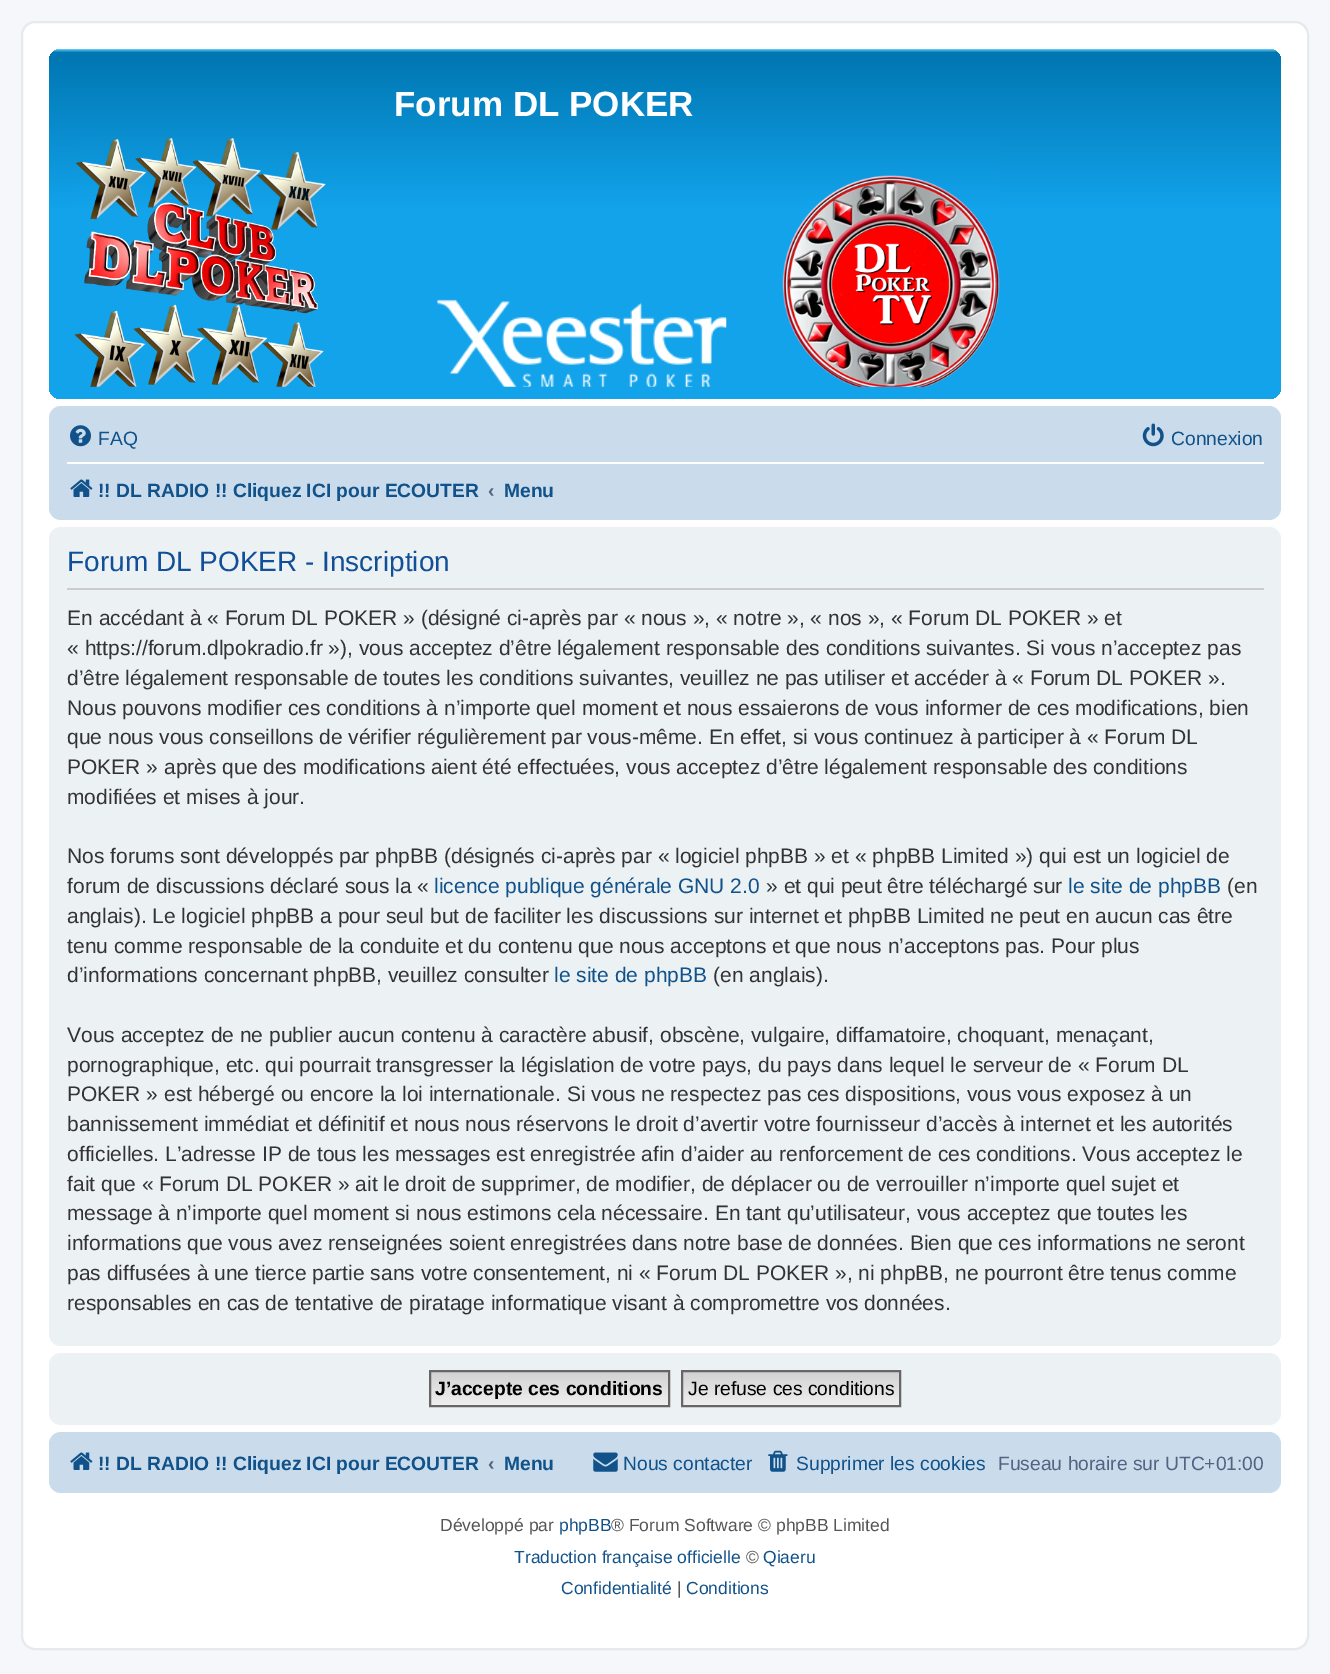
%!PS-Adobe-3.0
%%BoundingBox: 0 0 1330 1674
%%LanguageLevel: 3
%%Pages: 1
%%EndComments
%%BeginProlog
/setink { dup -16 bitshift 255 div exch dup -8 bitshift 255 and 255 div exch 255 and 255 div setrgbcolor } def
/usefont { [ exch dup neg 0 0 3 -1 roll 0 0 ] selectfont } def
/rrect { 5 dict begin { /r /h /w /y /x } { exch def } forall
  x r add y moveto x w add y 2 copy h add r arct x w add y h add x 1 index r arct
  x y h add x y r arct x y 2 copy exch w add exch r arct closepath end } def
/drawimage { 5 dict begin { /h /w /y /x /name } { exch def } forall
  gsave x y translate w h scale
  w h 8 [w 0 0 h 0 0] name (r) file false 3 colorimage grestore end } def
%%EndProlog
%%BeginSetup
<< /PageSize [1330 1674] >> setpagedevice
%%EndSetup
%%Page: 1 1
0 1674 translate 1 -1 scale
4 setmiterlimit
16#F5F7FA setink
0 0 1330 1674 rectfill
16#FFFFFF setink
22 22 1286 1627 13 rrect gsave fill grestore
16#E6E9ED setink
2 setlinewidth
stroke
gsave 49 49 1232 350 12 rrect clip newpath
<< /ShadingType 2 /ColorSpace /DeviceRGB /Coords [665 49 665 399] /Extend [true true] /Function << /FunctionType 3 /Domain [0 1] /Functions [<< /FunctionType 2 /Domain [0 1] /C0 [0.416 0.808 1] /C1 [0 0.463 0.694] /N 1 >> << /FunctionType 2 /Domain [0 1] /C0 [0 0.463 0.694] /C1 [0.071 0.639 0.922] /N 1 >> << /FunctionType 2 /Domain [0 1] /C0 [0.071 0.639 0.922] /C1 [0.071 0.639 0.922] /N 1 >>] /Bounds [0.01 0.46] /Encode [0 1 0 1 0 1] >> >> shfill grestore
/LiberationSans-Bold 35 usefont
16#FFFFFF setink
394 116 moveto (Forum DL POKER) show
(img1.raw) 74 138 926 249 drawimage
16#CADCEB setink
49 406 1232 114 12 rrect fill
(img2.raw) 70 425 21 22 drawimage
/LiberationSans-Regular 19.25 usefont
16#105289 setink
98 445 moveto (FAQ) show
(img3.raw) 1142 423 22 24 drawimage
1171 445 moveto (Connexion) show
16#FFFFFF setink
67 462 1197 2 rectfill
(img4.raw) 70 479 23 18 drawimage
/LiberationSans-Bold 19.25 usefont
16#105289 setink
98 497 moveto (!! DL RADIO !! Cliquez ICI pour ECOUTER) show
16#536482 setink
488 497 moveto (‹) show
16#105289 setink
504 497 moveto (Menu) show
16#ECF1F3 setink
49 527 1232 819 12 rrect fill
16#CCCCCC setink
67 588 1197 2 rectfill
/LiberationSans-Regular 28 usefont
16#115098 setink
67 571 moveto (Forum DL POKER - Inscription) show
/LiberationSans-Regular 21 usefont
16#333333 setink
[
    [(En accédant à « Forum DL POKER » \(désigné ci-après par « nous », « notre », « nos », « Forum DL POKER » et) 67 625]
    [(« https://forum.dlpokradio.fr »\), vous acceptez d’être légalement responsable des conditions suivantes. Si vous n’acceptez pas) 67 655]
    [(d’être légalement responsable de toutes les conditions suivantes, veuillez ne pas utiliser et accéder à « Forum DL POKER ».) 67 685]
    [(Nous pouvons modifier ces conditions à n’importe quel moment et nous essaierons de vous informer de ces modifications, bien) 67 715]
    [(que nous vous conseillons de vérifier régulièrement par vous-même. En effet, si vous continuez à participer à « Forum DL) 67 744]
    [(POKER » après que des modifications aient été effectuées, vous acceptez d’être légalement responsable des conditions) 67 774]
    [(modifiées et mises à jour.) 67 804]
    [(Nos forums sont développés par phpBB \(désignés ci-après par « logiciel phpBB » et « phpBB Limited »\) qui est un logiciel de) 67 863]
    [(forum de discussions déclaré sous la «) 67 893]
] { aload pop moveto show } forall
16#105289 setink
434 893 moveto (licence publique générale GNU 2.0) show
16#333333 setink
766 893 moveto (» et qui peut être téléchargé sur) show
16#105289 setink
1068 893 moveto (le site de phpBB) show
16#333333 setink
[
    [(\(en) 1227 893]
    [(anglais\). Le logiciel phpBB a pour seul but de faciliter les discussions sur internet et phpBB Limited ne peut en aucun cas être) 67 923]
    [(tenu comme responsable de la conduite et du contenu que nous acceptons et que nous n’acceptons pas. Pour plus) 67 953]
    [(d’informations concernant phpBB, veuillez consulter) 67 982]
] { aload pop moveto show } forall
16#105289 setink
554 982 moveto (le site de phpBB) show
16#333333 setink
[
    [(\(en anglais\).) 713 982]
    [(Vous acceptez de ne publier aucun contenu à caractère abusif, obscène, vulgaire, diffamatoire, choquant, menaçant,) 67 1042]
    [(pornographique, etc. qui pourrait transgresser la législation de votre pays, du pays dans lequel le serveur de « Forum DL) 67 1072]
    [(POKER » est hébergé ou encore la loi internationale. Si vous ne respectez pas ces dispositions, vous vous exposez à un) 67 1101]
    [(bannissement immédiat et définitif et nous nous réservons le droit d’avertir votre fournisseur d’accès à internet et les autorités) 67 1131]
    [(officielles. L’adresse IP de tous les messages est enregistrée afin d’aider au renforcement de ces conditions. Vous acceptez le) 67 1161]
    [(fait que « Forum DL POKER » ait le droit de supprimer, de modifier, de déplacer ou de verrouiller n’importe quel sujet et) 67 1191]
    [(message à n’importe quel moment si nous estimons cela nécessaire. En tant qu’utilisateur, vous acceptez que toutes les) 67 1220]
    [(informations que vous avez renseignées soient enregistrées dans notre base de données. Bien que ces informations ne seront) 67 1250]
    [(pas diffusées à une tierce partie sans votre consentement, ni « Forum DL POKER », ni phpBB, ne pourront être tenus comme) 67 1280]
    [(responsables en cas de tentative de piratage informatique visant à compromettre vos données.) 67 1310]
] { aload pop moveto show } forall
16#ECF1F3 setink
49 1353 1232 72 12 rrect fill
gsave 431 1372 moveto 668 1372 lineto 668 1405 lineto 431 1405 lineto closepath clip newpath
<< /ShadingType 2 /ColorSpace /DeviceRGB /Coords [550 1372 550 1405] /Extend [true true] /Function << /FunctionType 2 /Domain [0 1] /C0 [0.824 0.824 0.824] /C1 [0.937 0.937 0.937] /N 1 >> >> shfill grestore
16#666666 setink
430 1371 239 35 rectstroke
/LiberationSans-Bold 19.25 usefont
16#000000 setink
435 1395 moveto (J’accepte ces conditions) show
gsave 683 1372 moveto 899 1372 lineto 899 1405 lineto 683 1405 lineto closepath clip newpath
<< /ShadingType 2 /ColorSpace /DeviceRGB /Coords [791 1372 791 1405] /Extend [true true] /Function << /FunctionType 2 /Domain [0 1] /C0 [0.824 0.824 0.824] /C1 [0.937 0.937 0.937] /N 1 >> >> shfill grestore
16#666666 setink
682 1371 218 35 rectstroke
/LiberationSans-Regular 19.25 usefont
16#000000 setink
688 1395 moveto (Je refuse ces conditions) show
16#CADCEB setink
49 1432 1232 61 12 rrect fill
(img4.raw) 70 1452 23 18 drawimage
/LiberationSans-Bold 19.25 usefont
16#105289 setink
98 1470 moveto (!! DL RADIO !! Cliquez ICI pour ECOUTER) show
16#536482 setink
488 1470 moveto (‹) show
16#105289 setink
504 1470 moveto (Menu) show
(img5.raw) 593 1452 25 20 drawimage
/LiberationSans-Regular 19.25 usefont
623 1470 moveto (Nous contacter) show
(img6.raw) 768 1450 20 22 drawimage
796 1470 moveto (Supprimer les cookies) show
16#536482 setink
998 1470 moveto (Fuseau horaire sur UTC+01:00) show
/LiberationSans-Regular 17.5 usefont
16#555555 setink
440 1531 moveto (Développé par) show
16#105289 setink
559 1531 moveto (phpBB) show
16#555555 setink
611 1531 moveto (® Forum Software © phpBB Limited) show
16#105289 setink
514 1563 moveto (Traduction française officielle) show
16#555555 setink
746 1563 moveto (©) show
16#105289 setink
763 1563 moveto (Qiaeru) show
561 1594 moveto (Confidentialité) show
16#555555 setink
677 1594 moveto (|) show
16#105289 setink
686 1594 moveto (Conditions) show
showpage
%%EOF
